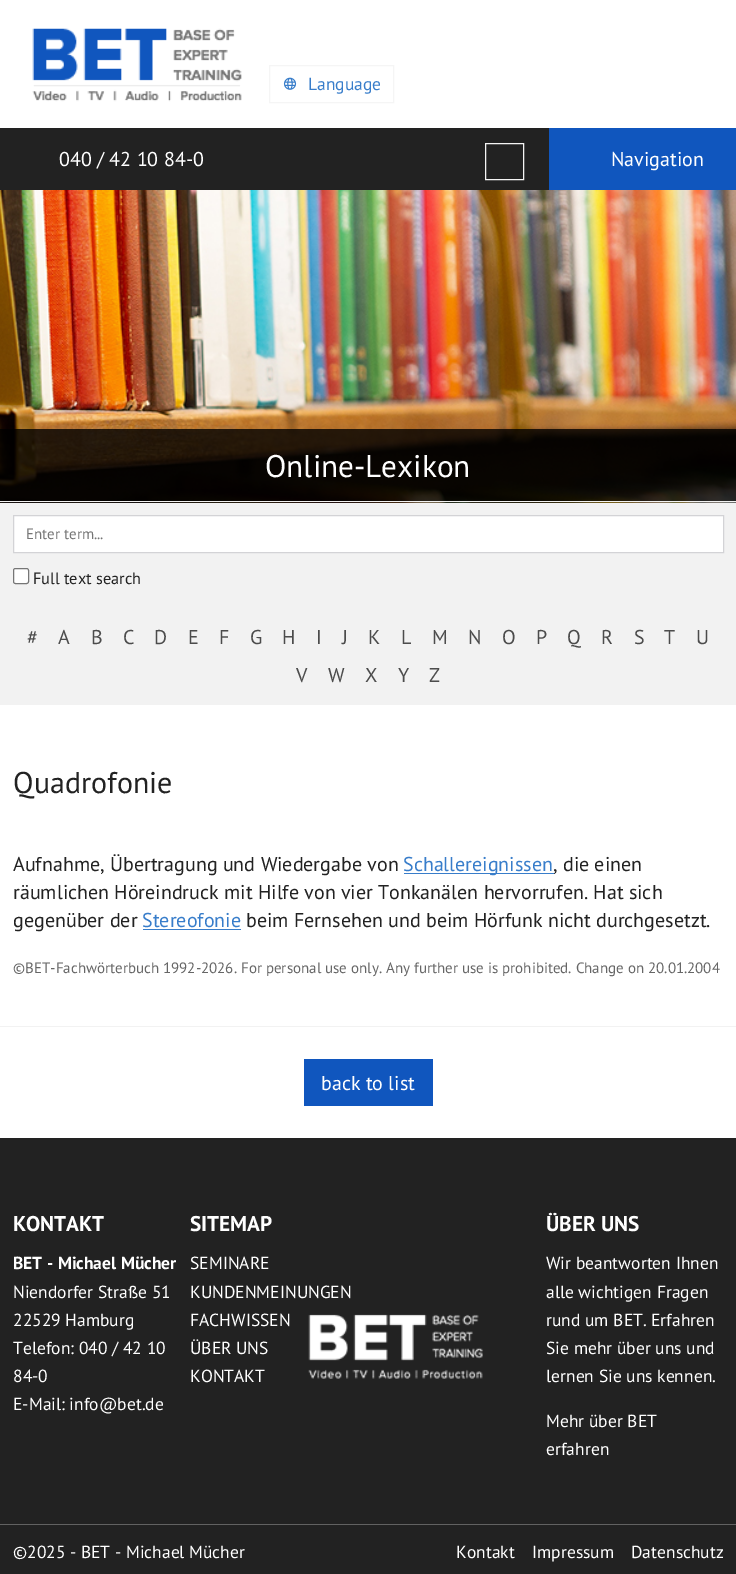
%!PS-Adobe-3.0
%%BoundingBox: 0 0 736 1574
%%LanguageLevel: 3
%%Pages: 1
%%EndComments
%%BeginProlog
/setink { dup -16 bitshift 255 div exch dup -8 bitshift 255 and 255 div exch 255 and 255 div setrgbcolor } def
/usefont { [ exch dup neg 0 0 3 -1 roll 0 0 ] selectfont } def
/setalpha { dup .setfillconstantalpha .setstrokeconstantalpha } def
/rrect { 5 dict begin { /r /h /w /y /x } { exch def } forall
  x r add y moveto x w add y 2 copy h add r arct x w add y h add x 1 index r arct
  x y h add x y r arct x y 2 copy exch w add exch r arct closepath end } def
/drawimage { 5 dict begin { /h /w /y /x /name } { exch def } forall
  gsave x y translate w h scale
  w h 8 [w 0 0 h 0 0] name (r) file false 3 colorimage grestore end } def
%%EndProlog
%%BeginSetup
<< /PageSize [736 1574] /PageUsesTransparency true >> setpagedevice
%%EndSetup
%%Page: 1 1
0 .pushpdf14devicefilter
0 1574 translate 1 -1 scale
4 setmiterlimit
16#222222 setink
0 0 736 1574 rectfill
16#FFFFFF setink
0 0 736 128 rectfill
(img1.raw) 32 28 210 74 drawimage
16#F5F5F5 setink
269.5 65.5 124 37 rectstroke
(img2.raw) 283 77 14 13 drawimage
/PTSans-Regular 17.5 usefont
16#387DCA setink
308 90 moveto (Language) show
16#F5F5F5 setink
485.5 143.5 38 36 rectstroke
/PTSans-Regular 20 usefont
16#FFFFFF setink
59 166 moveto (040 / 42 10 84-0) show
16#1056BE setink
549 128 187 62 rectfill
16#FFFFFF setink
611 166 moveto (Navigation) show
(img3.raw) 0 190 736 313 drawimage
16#F2F2F2 setink
0 501 736 1 rectfill
0.8 setalpha
16#000000 setink
0 429 736 72 rectfill
/PTSans-Regular 31.25 usefont
1 setalpha
16#FFFFFF setink
265 477 moveto (Online-Lexikon) show
0 705 736 433 rectfill
16#F2F2F2 setink
0 503 736 202 rectfill
16#FFFFFF setink
13.5 515.5 moveto 723.5 515.5 lineto 723.5 552.5 lineto 13.5 552.5 lineto closepath gsave fill grestore
16#D3D3D6 setink
stroke
/PTSans-Regular 15 usefont
16#757575 setink
26 539 moveto (Enter term...) show
16#FFFFFF setink
13.5 568.5 15 15 2 rrect gsave fill grestore
16#767676 setink
stroke
/PTSans-Regular 16.25 usefont
16#222222 setink
33 584 moveto (Full text search) show
/PTSans-Regular 20 usefont
16#4C4C4C setink
[
    [(#) 27 644]
    [(A) 58 644]
    [(B) 91 644]
    [(C) 123 644]
    [(D) 154 644]
    [(E) 188 644]
    [(F) 219 644]
    [(G) 250 644]
    [(H) 282 644]
    [(I) 316 644]
    [(J) 342 644]
    [(K) 368 644]
    [(L) 401 644]
    [(M) 432 644]
    [(N) 468 644]
    [(O) 502 644]
    [(P) 536 644]
    [(Q) 567 644]
    [(R) 601 644]
    [(S) 634 644]
    [(T) 664 644]
    [(U) 696 644]
    [(V) 296 682]
    [(W) 328 682]
    [(X) 365 682]
    [(Y) 398 682]
    [(Z) 429 682]
] { aload pop moveto show } forall
/PTSans-Regular 30 usefont
16#222222 setink
13 793 moveto (Quadrofonie) show
/PTSans-Regular 20 usefont
13 871 moveto (Aufnahme, Übertragung und Wiedergabe von) show
16#387DCA setink
404 873 150 1 rectfill
403 871 moveto (Schallereignissen) show
16#222222 setink
[
    [(, die einen) 553 871]
    [(räumlichen Höreindruck mit Hilfe von vier Tonkanälen hervorrufen. Hat sich) 13 899]
    [(gegenüber der) 13 927]
] { aload pop moveto show } forall
16#387DCA setink
142 927 moveto (Stereofonie) show
143 929 98 1 rectfill
16#222222 setink
246 927 moveto (beim Fernsehen und beim Hörfunk nicht durchgesetzt.) show
/PTSans-Regular 15 usefont
16#666666 setink
13 973 moveto (©BET-Fachwörterbuch 1992-2026. For personal use only. Any further use is prohibited. Change on 20.01.2004) show
16#F2F2F2 setink
0 1026 736 1 rectfill
16#1056BE setink
304 1059 129 47 rectfill
/PTSans-Regular 20 usefont
16#FFFFFF setink
321 1090 moveto (back to list) show
(img4.raw) 308 1314 175 65 drawimage
/PTSans-Bold 21.25 usefont
13 1231 moveto (KONTAKT) show
/PTSans-Bold 17.5 usefont
13 1269 moveto (BET - Michael Mücher) show
/PTSans-Regular 17.5 usefont
[
    [(Niendorfer Straße 51) 13 1298]
    [(22529 Hamburg) 13 1326]
    [(Telefon: 040 / 42 10) 13 1354]
    [(84-0) 13 1382]
    [(E-Mail: info@bet.de) 13 1410]
] { aload pop moveto show } forall
/PTSans-Bold 21.25 usefont
190 1231 moveto (SITEMAP) show
/PTSans-Regular 17.5 usefont
[
    [(SEMINARE) 190 1269]
    [(KUNDENMEINUNGEN) 190 1298]
    [(FACHWISSEN) 190 1326]
    [(ÜBER UNS) 190 1354]
    [(KONTAKT) 190 1382]
] { aload pop moveto show } forall
/PTSans-Bold 21.25 usefont
546 1231 moveto (ÜBER UNS) show
/PTSans-Regular 17.5 usefont
[
    [(Wir beantworten Ihnen) 546 1269]
    [(alle wichtigen Fragen) 546 1298]
    [(rund um BET. Erfahren) 546 1326]
    [(Sie mehr über uns und) 546 1354]
    [(lernen Sie uns kennen.) 546 1382]
    [(Mehr über BET) 546 1427]
    [(erfahren) 546 1455]
] { aload pop moveto show } forall
16#626262 setink
0 1524 736 1 rectfill
16#FFFFFF setink
[
    [(©2025 - BET - Michael Mücher) 13 1558]
    [(Kontakt) 456 1558]
    [(Impressum) 532 1558]
    [(Datenschutz) 631 1558]
] { aload pop moveto show } forall
.poppdf14devicefilter showpage
%%EOF
